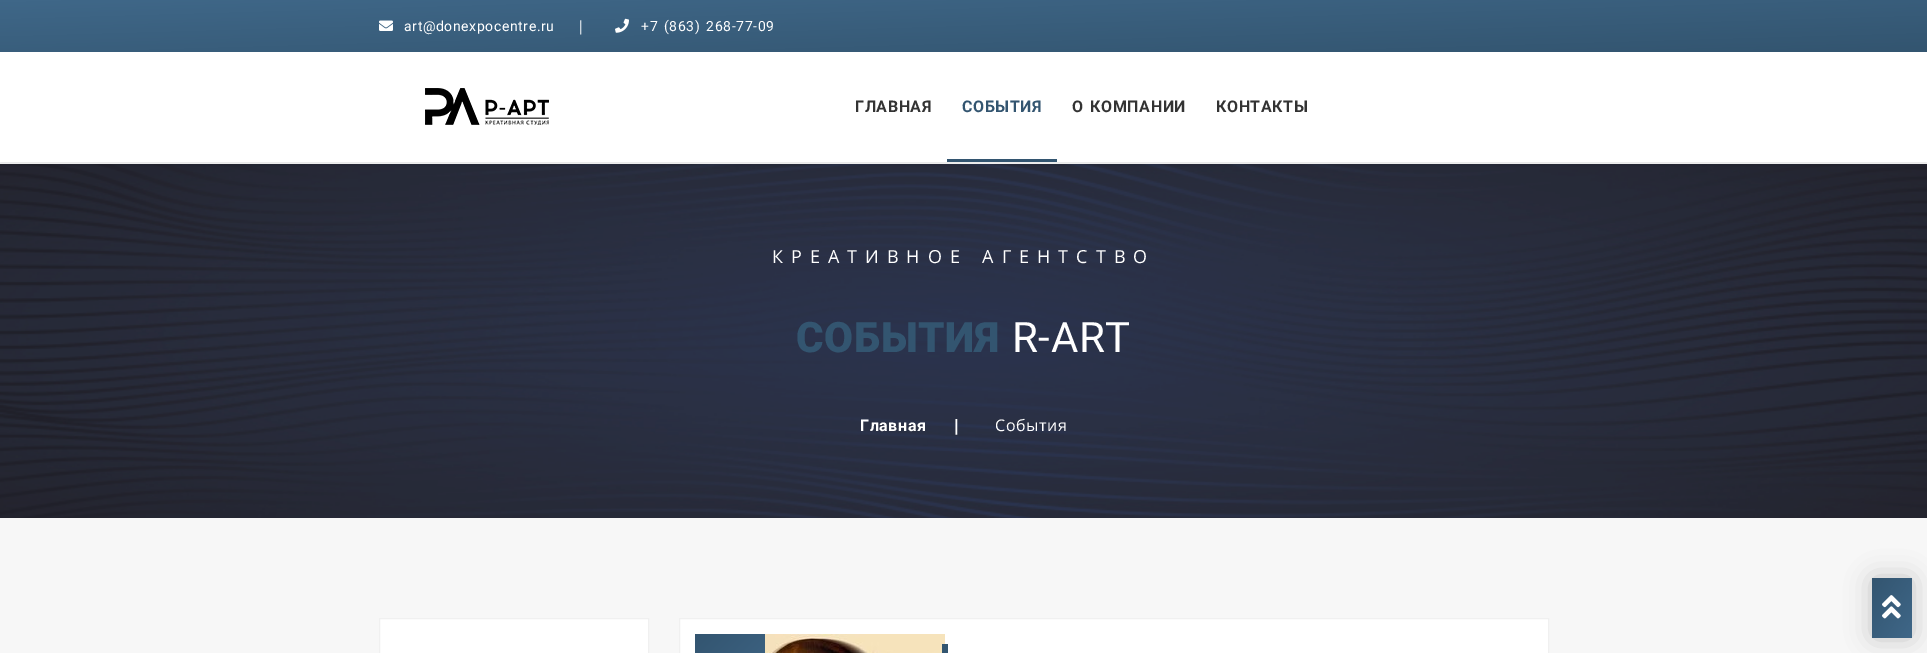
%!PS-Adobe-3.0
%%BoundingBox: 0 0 1927 653
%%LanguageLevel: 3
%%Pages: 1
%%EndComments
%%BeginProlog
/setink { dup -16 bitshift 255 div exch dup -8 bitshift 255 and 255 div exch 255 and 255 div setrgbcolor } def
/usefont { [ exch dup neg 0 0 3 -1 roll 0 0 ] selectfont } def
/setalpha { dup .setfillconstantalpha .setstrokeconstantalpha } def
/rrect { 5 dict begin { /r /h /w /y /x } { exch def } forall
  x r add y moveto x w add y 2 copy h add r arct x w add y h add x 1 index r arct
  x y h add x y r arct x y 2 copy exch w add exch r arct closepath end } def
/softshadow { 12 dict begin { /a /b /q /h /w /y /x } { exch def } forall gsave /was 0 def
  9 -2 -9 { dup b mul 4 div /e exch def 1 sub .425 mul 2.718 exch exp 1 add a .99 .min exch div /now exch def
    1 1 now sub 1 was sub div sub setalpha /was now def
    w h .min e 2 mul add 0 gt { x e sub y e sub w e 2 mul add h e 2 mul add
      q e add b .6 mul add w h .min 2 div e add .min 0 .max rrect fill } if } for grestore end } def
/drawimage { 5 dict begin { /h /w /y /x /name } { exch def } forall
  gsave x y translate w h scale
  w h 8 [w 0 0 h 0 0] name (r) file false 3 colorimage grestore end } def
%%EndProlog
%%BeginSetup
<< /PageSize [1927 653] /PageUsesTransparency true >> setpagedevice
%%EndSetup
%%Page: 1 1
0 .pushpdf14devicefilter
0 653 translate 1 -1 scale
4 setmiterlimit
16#FFFFFF setink
0 0 1927 653 rectfill
(img4.raw) 0 164 1927 354 drawimage
gsave
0 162 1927 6 rectclip
16#000000 setink
-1 1 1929 164 0 3 0.1 softshadow
grestore
gsave 0 0 moveto 1927 0 lineto 1927 52 lineto 0 52 lineto closepath clip newpath
<< /ShadingType 2 /ColorSpace /DeviceRGB /Coords [962 -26 965 78] /Extend [true true] /Function << /FunctionType 2 /Domain [0 1] /C0 [0.247 0.404 0.533] /C1 [0.2 0.333 0.439] /N 1 >> >> shfill grestore
(img1.raw) 379 20 14 11 drawimage
/Roboto-Regular 14 usefont
404 31 moveto 0.6 0 (art@donexpocentre.ru) ashow
/OpenSans-Regular 14 usefont
577 31 moveto 0.6 0 (|) ashow
(img2.raw) 615 18 14 15 drawimage
/Roboto-Regular 14 usefont
641 31 moveto 2 0 32 0.6 0 (+7 \(863\) 268-77-09) awidthshow
(img3.raw) 425 88 124 37 drawimage
/Roboto-Bold 16 usefont
16#333333 setink
855 112 moveto 0.6 0 (ГЛАВНАЯ) ashow
16#335570 setink
962 112 moveto 0.6 0 (СОБЫТИЯ) ashow
947 159 110 3 rectfill
16#333333 setink
1072 112 moveto 2 0 32 0.6 0 (О КОМПАНИИ) awidthshow
1216 112 moveto 0.6 0 (КОНТАКТЫ) ashow
/OpenSans-Regular 18 usefont
16#FFFFFF setink
772 263 moveto 2 0 32 8 0 (КРЕАТИВНОЕ АГЕНТСТВО) awidthshow
/Roboto-Black 42 usefont
16#335570 setink
796 352 moveto 0.6 0 (СОБЫТИЯ) ashow
/Roboto-Regular 42 usefont
16#FFFFFF setink
1012 352 moveto 0.6 0 (R-ART) ashow
/Roboto-Bold 16 usefont
860 431 moveto 0.6 0 (Главная) ashow
/OpenSans-Bold 16 usefont
952 431 moveto 0.6 0 (|) ashow
/OpenSans-Regular 16 usefont
995 431 moveto 0.6 0 (События) ashow
16#F7F7F7 setink
0 518 1927 135 rectfill
16#FFFFFF setink
379.5 618.5 moveto 648.5 618.5 lineto 648.5 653.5 lineto 379.5 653.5 lineto closepath gsave fill grestore
16#F0F0F0 setink
stroke
16#FFFFFF setink
679.5 618.5 moveto 1548.5 618.5 lineto 1548.5 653.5 lineto 679.5 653.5 lineto closepath gsave fill grestore
16#F0F0F0 setink
stroke
gsave 695 634 moveto 765 634 lineto 765 653 lineto 695 653 lineto closepath clip newpath
<< /ShadingType 2 /ColorSpace /DeviceRGB /Coords [695 634 765 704] /Extend [true true] /Function << /FunctionType 2 /Domain [0 1] /C0 [0.2 0.333 0.439] /C1 [0.247 0.404 0.533] /N 1 >> >> shfill grestore
(img5.raw) 765 634 180 19 drawimage
16#335570 setink
942 644 6 9 rectfill
16#000000 setink
1871 577 42 62 4 12.5 0.2 softshadow
gsave 1872 578 40 60 3 rrect clip newpath
<< /ShadingType 2 /ColorSpace /DeviceRGB /Coords [1864 590 1920 626] /Extend [true true] /Function << /FunctionType 2 /Domain [0 1] /C0 [0.2 0.333 0.439] /C1 [0.247 0.404 0.533] /N 1 >> >> shfill grestore
(img6.raw) 1882 595 19 24 drawimage
.poppdf14devicefilter showpage
%%EOF
